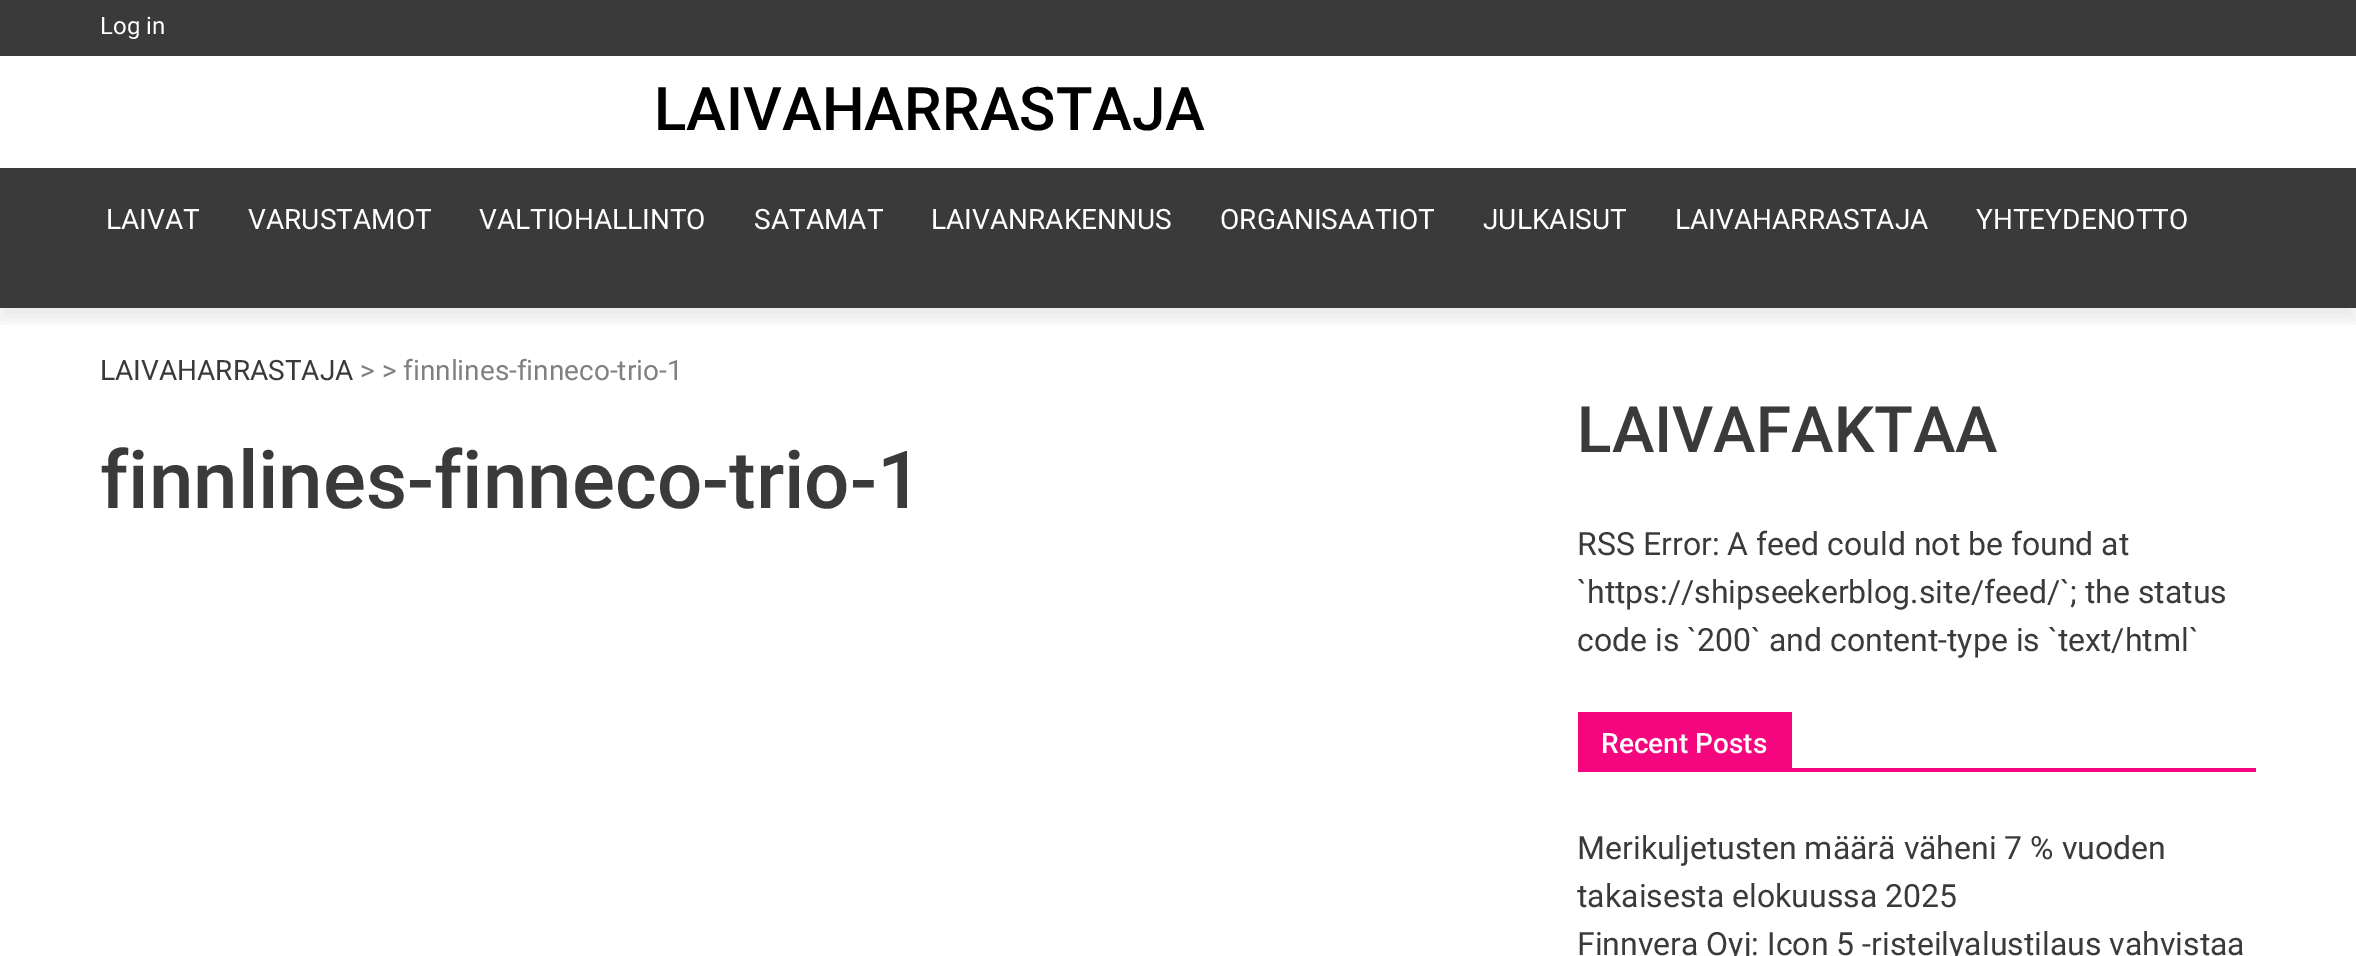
%!PS-Adobe-3.0
%%BoundingBox: 0 0 2356 956
%%LanguageLevel: 3
%%Pages: 1
%%EndComments
%%BeginProlog
/setink { dup -16 bitshift 255 div exch dup -8 bitshift 255 and 255 div exch 255 and 255 div setrgbcolor } def
/usefont { [ exch dup neg 0 0 3 -1 roll 0 0 ] selectfont } def
/setalpha { dup .setfillconstantalpha .setstrokeconstantalpha } def
/rrect { 5 dict begin { /r /h /w /y /x } { exch def } forall
  x r add y moveto x w add y 2 copy h add r arct x w add y h add x 1 index r arct
  x y h add x y r arct x y 2 copy exch w add exch r arct closepath end } def
/softshadow { 12 dict begin { /a /b /q /h /w /y /x } { exch def } forall gsave /was 0 def
  9 -2 -9 { dup b mul 4 div /e exch def 1 sub .425 mul 2.718 exch exp 1 add a .99 .min exch div /now exch def
    1 1 now sub 1 was sub div sub setalpha /was now def
    w h .min e 2 mul add 0 gt { x e sub y e sub w e 2 mul add h e 2 mul add
      q e add b .6 mul add w h .min 2 div e add .min 0 .max rrect fill } if } for grestore end } def
%%EndProlog
%%BeginSetup
<< /PageSize [2356 956] /PageUsesTransparency true >> setpagedevice
%%EndSetup
%%Page: 1 1
0 .pushpdf14devicefilter
0 956 translate 1 -1 scale
4 setmiterlimit
16#FFFFFF setink
0 0 2356 956 rectfill
gsave
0 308 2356 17 rectclip
16#000000 setink
0 12 2356 308 0 8 0.08 softshadow
grestore
16#3A3A3A setink
0 0 2356 56 rectfill
/Roboto-Regular 24 usefont
16#FFFFFF setink
100 34 moveto (Log in) show
/Roboto-Medium 60 usefont
16#000000 setink
654 130 moveto (LAIVAHARRASTAJA) show
16#3A3A3A setink
0 168 2356 140 rectfill
/Roboto-Regular 28 usefont
16#FFFFFF setink
[
    [(LAIVAT) 106 229]
    [(VARUSTAMOT) 248 229]
    [(VALTIOHALLINTO) 479 229]
    [(SATAMAT) 754 229]
    [(LAIVANRAKENNUS) 931 229]
    [(ORGANISAATIOT) 1220 229]
    [(JULKAISUT) 1483 229]
    [(LAIVAHARRASTAJA) 1675 229]
    [(YHTEYDENOTTO) 1976 229]
] { aload pop moveto show } forall
16#3A3A3A setink
100 380 moveto (LAIVAHARRASTAJA) show
16#808080 setink
360 380 moveto (> > finnlines-finneco-trio-1) show
/Roboto-Medium 80 usefont
16#3A3A3A setink
100 508 moveto (finnlines-finneco-trio-1) show
/Roboto-Medium 64 usefont
1577 452 moveto (LAIVAFAKTAA) show
/Roboto-Regular 32 usefont
[
    [(RSS Error: A feed could not be found at) 1577 555]
    [(`https://shipseekerblog.site/feed/`; the status) 1577 603]
    [(code is `200` and content-type is `text/html`) 1577 651]
] { aload pop moveto show } forall
16#F5067E setink
1578 768 678 4 rectfill
1578 712 214 56 rectfill
/Roboto-Medium 28 usefont
16#FFFFFF setink
1601 753 moveto (Recent Posts) show
/Roboto-Regular 32 usefont
16#3A3A3A setink
[
    [(Merikuljetusten määrä väheni 7 % vuoden) 1577 859]
    [(takaisesta elokuussa 2025) 1577 907]
    [(Finnvera Oyj: Icon 5 -risteilyalustilaus vahvistaa) 1577 955]
] { aload pop moveto show } forall
.poppdf14devicefilter showpage
%%EOF
